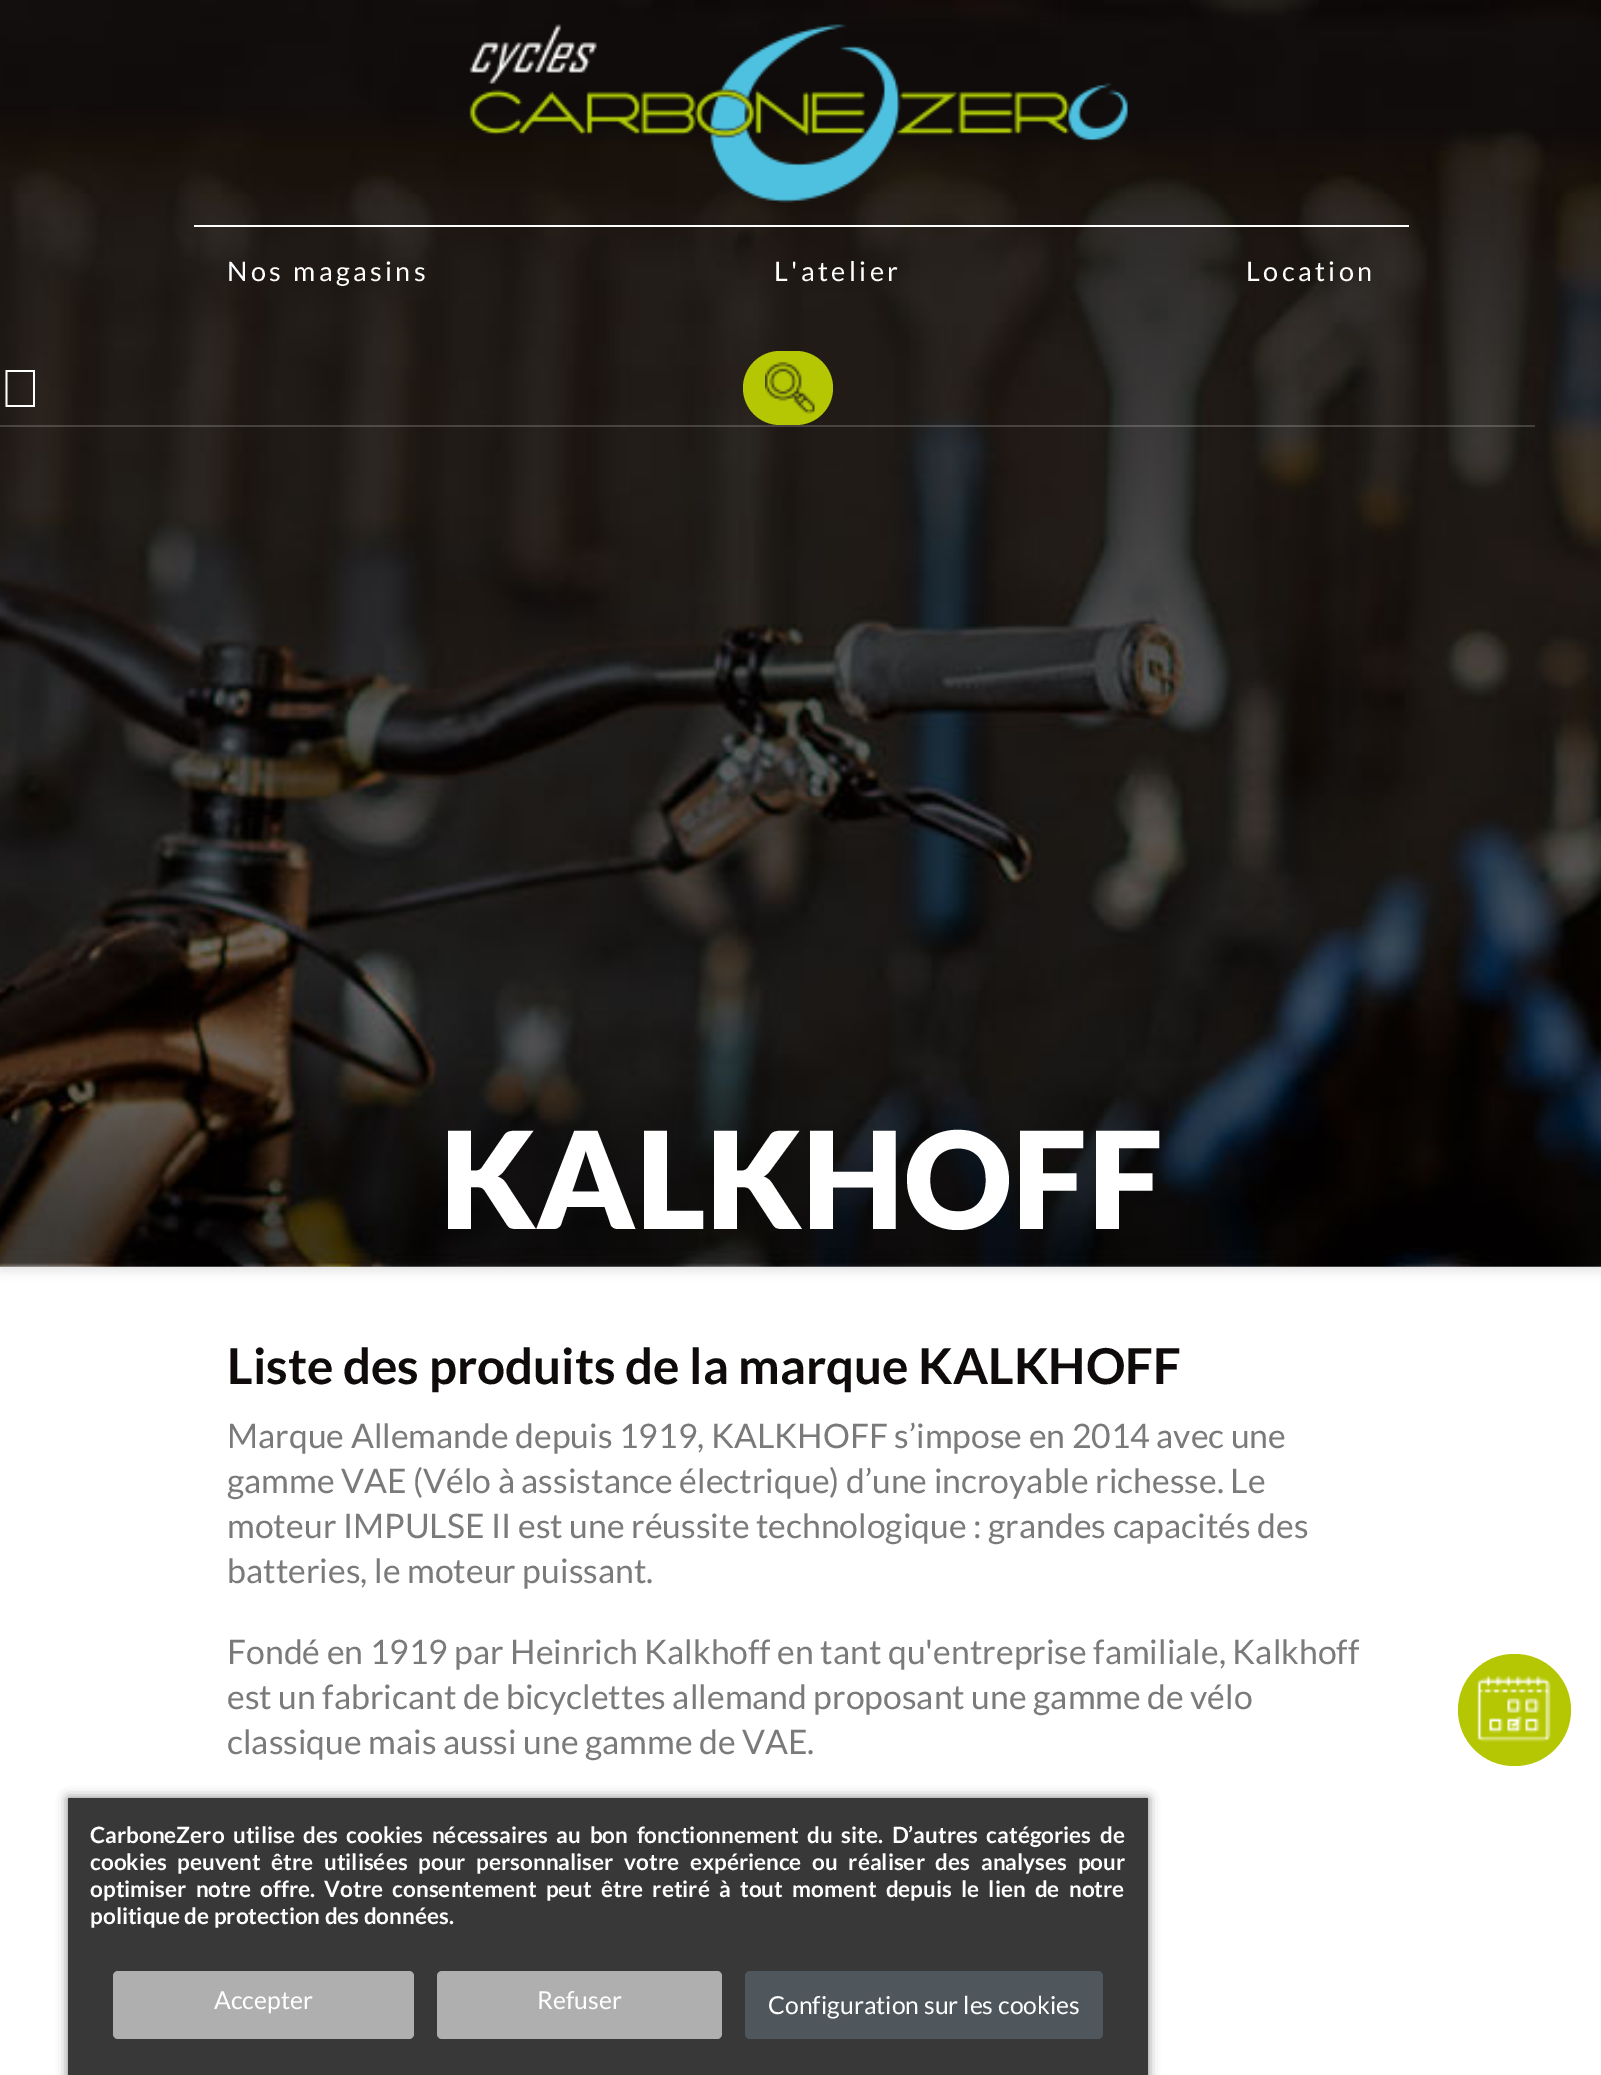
%!PS-Adobe-3.0
%%BoundingBox: 0 0 1601 2075
%%LanguageLevel: 3
%%Pages: 1
%%EndComments
%%BeginProlog
/setink { dup -16 bitshift 255 div exch dup -8 bitshift 255 and 255 div exch 255 and 255 div setrgbcolor } def
/usefont { [ exch dup neg 0 0 3 -1 roll 0 0 ] selectfont } def
/setalpha { dup .setfillconstantalpha .setstrokeconstantalpha } def
/rrect { 5 dict begin { /r /h /w /y /x } { exch def } forall
  x r add y moveto x w add y 2 copy h add r arct x w add y h add x 1 index r arct
  x y h add x y r arct x y 2 copy exch w add exch r arct closepath end } def
/softshadow { 12 dict begin { /a /b /q /h /w /y /x } { exch def } forall gsave /was 0 def
  9 -2 -9 { dup b mul 4 div /e exch def 1 sub .425 mul 2.718 exch exp 1 add a .99 .min exch div /now exch def
    1 1 now sub 1 was sub div sub setalpha /was now def
    w h .min e 2 mul add 0 gt { x e sub y e sub w e 2 mul add h e 2 mul add
      q e add b .6 mul add w h .min 2 div e add .min 0 .max rrect fill } if } for grestore end } def
/drawimage { 5 dict begin { /h /w /y /x /name } { exch def } forall
  gsave x y translate w h scale
  w h 8 [w 0 0 h 0 0] name (r) file false 3 colorimage grestore end } def
%%EndProlog
%%BeginSetup
<< /PageSize [1601 2075] /PageUsesTransparency true >> setpagedevice
%%EndSetup
%%Page: 1 1
0 .pushpdf14devicefilter
0 2075 translate 1 -1 scale
4 setmiterlimit
16#FFFFFF setink
0 0 1601 2075 rectfill
16#000000 setink
0 5 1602 1266 0 5.5 0.11 softshadow
(img3.raw) 0 0 1601 1267 drawimage
16#FFFFFF setink
194 225 1215 2 rectfill
(img1.raw) 469 24 659 179 drawimage
/Lato-Regular 27 usefont
227 281 moveto 3.4 0 (Nos magasins) ashow
774 281 moveto 3.4 0 (L'atelier) ashow
1246 281 moveto 3.4 0 (Location) ashow
0.18 setalpha
0 425 1535 2 rectfill
1 setalpha
5.5 370 moveto 35 370 lineto 35 407 lineto 5.5 407 lineto closepath 7.5 372 moveto 7.5 405 lineto 33 405 lineto 33 372 lineto closepath fill
16#B5C702 setink
743 351 90 74 37 rrect fill
(img2.raw) 765 362 50 52 drawimage
/Lato-Black 135 usefont
16#FFFFFF setink
440 1229 moveto (KALKHOFF) show
/Lato-Bold 49.5 usefont
16#0F0B0B setink
227 1384 moveto (Liste des produits de la marque KALKHOFF) show
/Lato-Regular 33.75 usefont
16#7A7A7A setink
[
    [(Marque Allemande depuis 1919, KALKHOFF s’impose en 2014 avec une) 227 1448]
    [(gamme VAE \(Vélo à assistance électrique\) d’une incroyable richesse. Le) 227 1493]
    [(moteur IMPULSE II est une réussite technologique : grandes capacités des) 227 1538]
    [(batteries, le moteur puissant.) 227 1583]
    [(Fondé en 1919 par Heinrich Kalkhoff en tant qu'entreprise familiale, Kalkhoff) 227 1664]
    [(est un fabricant de bicyclettes allemand proposant une gamme de vélo) 227 1709]
    [(classique mais aussi une gamme de VAE.) 227 1754]
] { aload pop moveto show } forall
16#B5C702 setink
1458 1654 113 112 56 rrect fill
(img4.raw) 1477 1676 74 66 drawimage
16#000000 setink
68 1798 1080 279 0 5.5 0.5 softshadow
16#383838 setink
68 1798 1080 277 rectfill
/Lato-Bold 22.5 usefont
16#FFFFFF setink
90 1843 moveto 4.25 0 32 (CarboneZero utilise des cookies nécessaires au bon fonctionnement du site. D’autres catégories de) widthshow
90 1870 moveto 6.4 0 32 (cookies peuvent être utilisées pour personnaliser votre expérience ou réaliser des analyses pour) widthshow
90 1897 moveto 4.9 0 32 (optimiser notre offre. Votre consentement peut être retiré à tout moment depuis le lien de notre) widthshow
90 1924 moveto (politique de protection des données.) show
16#AFAFAF setink
113 1971 301 68 5 rrect fill
/Lato-Regular 24.75 usefont
16#FFFFFF setink
214 2009 moveto (Accepter) show
16#AFAFAF setink
437 1971 285 68 5 rrect fill
16#FFFFFF setink
537 2009 moveto (Refuser) show
16#50575C setink
745 1971 358 68 5 rrect fill
16#FFFFFF setink
768 2014 moveto (Configuration sur les cookies) show
.poppdf14devicefilter showpage
%%EOF
